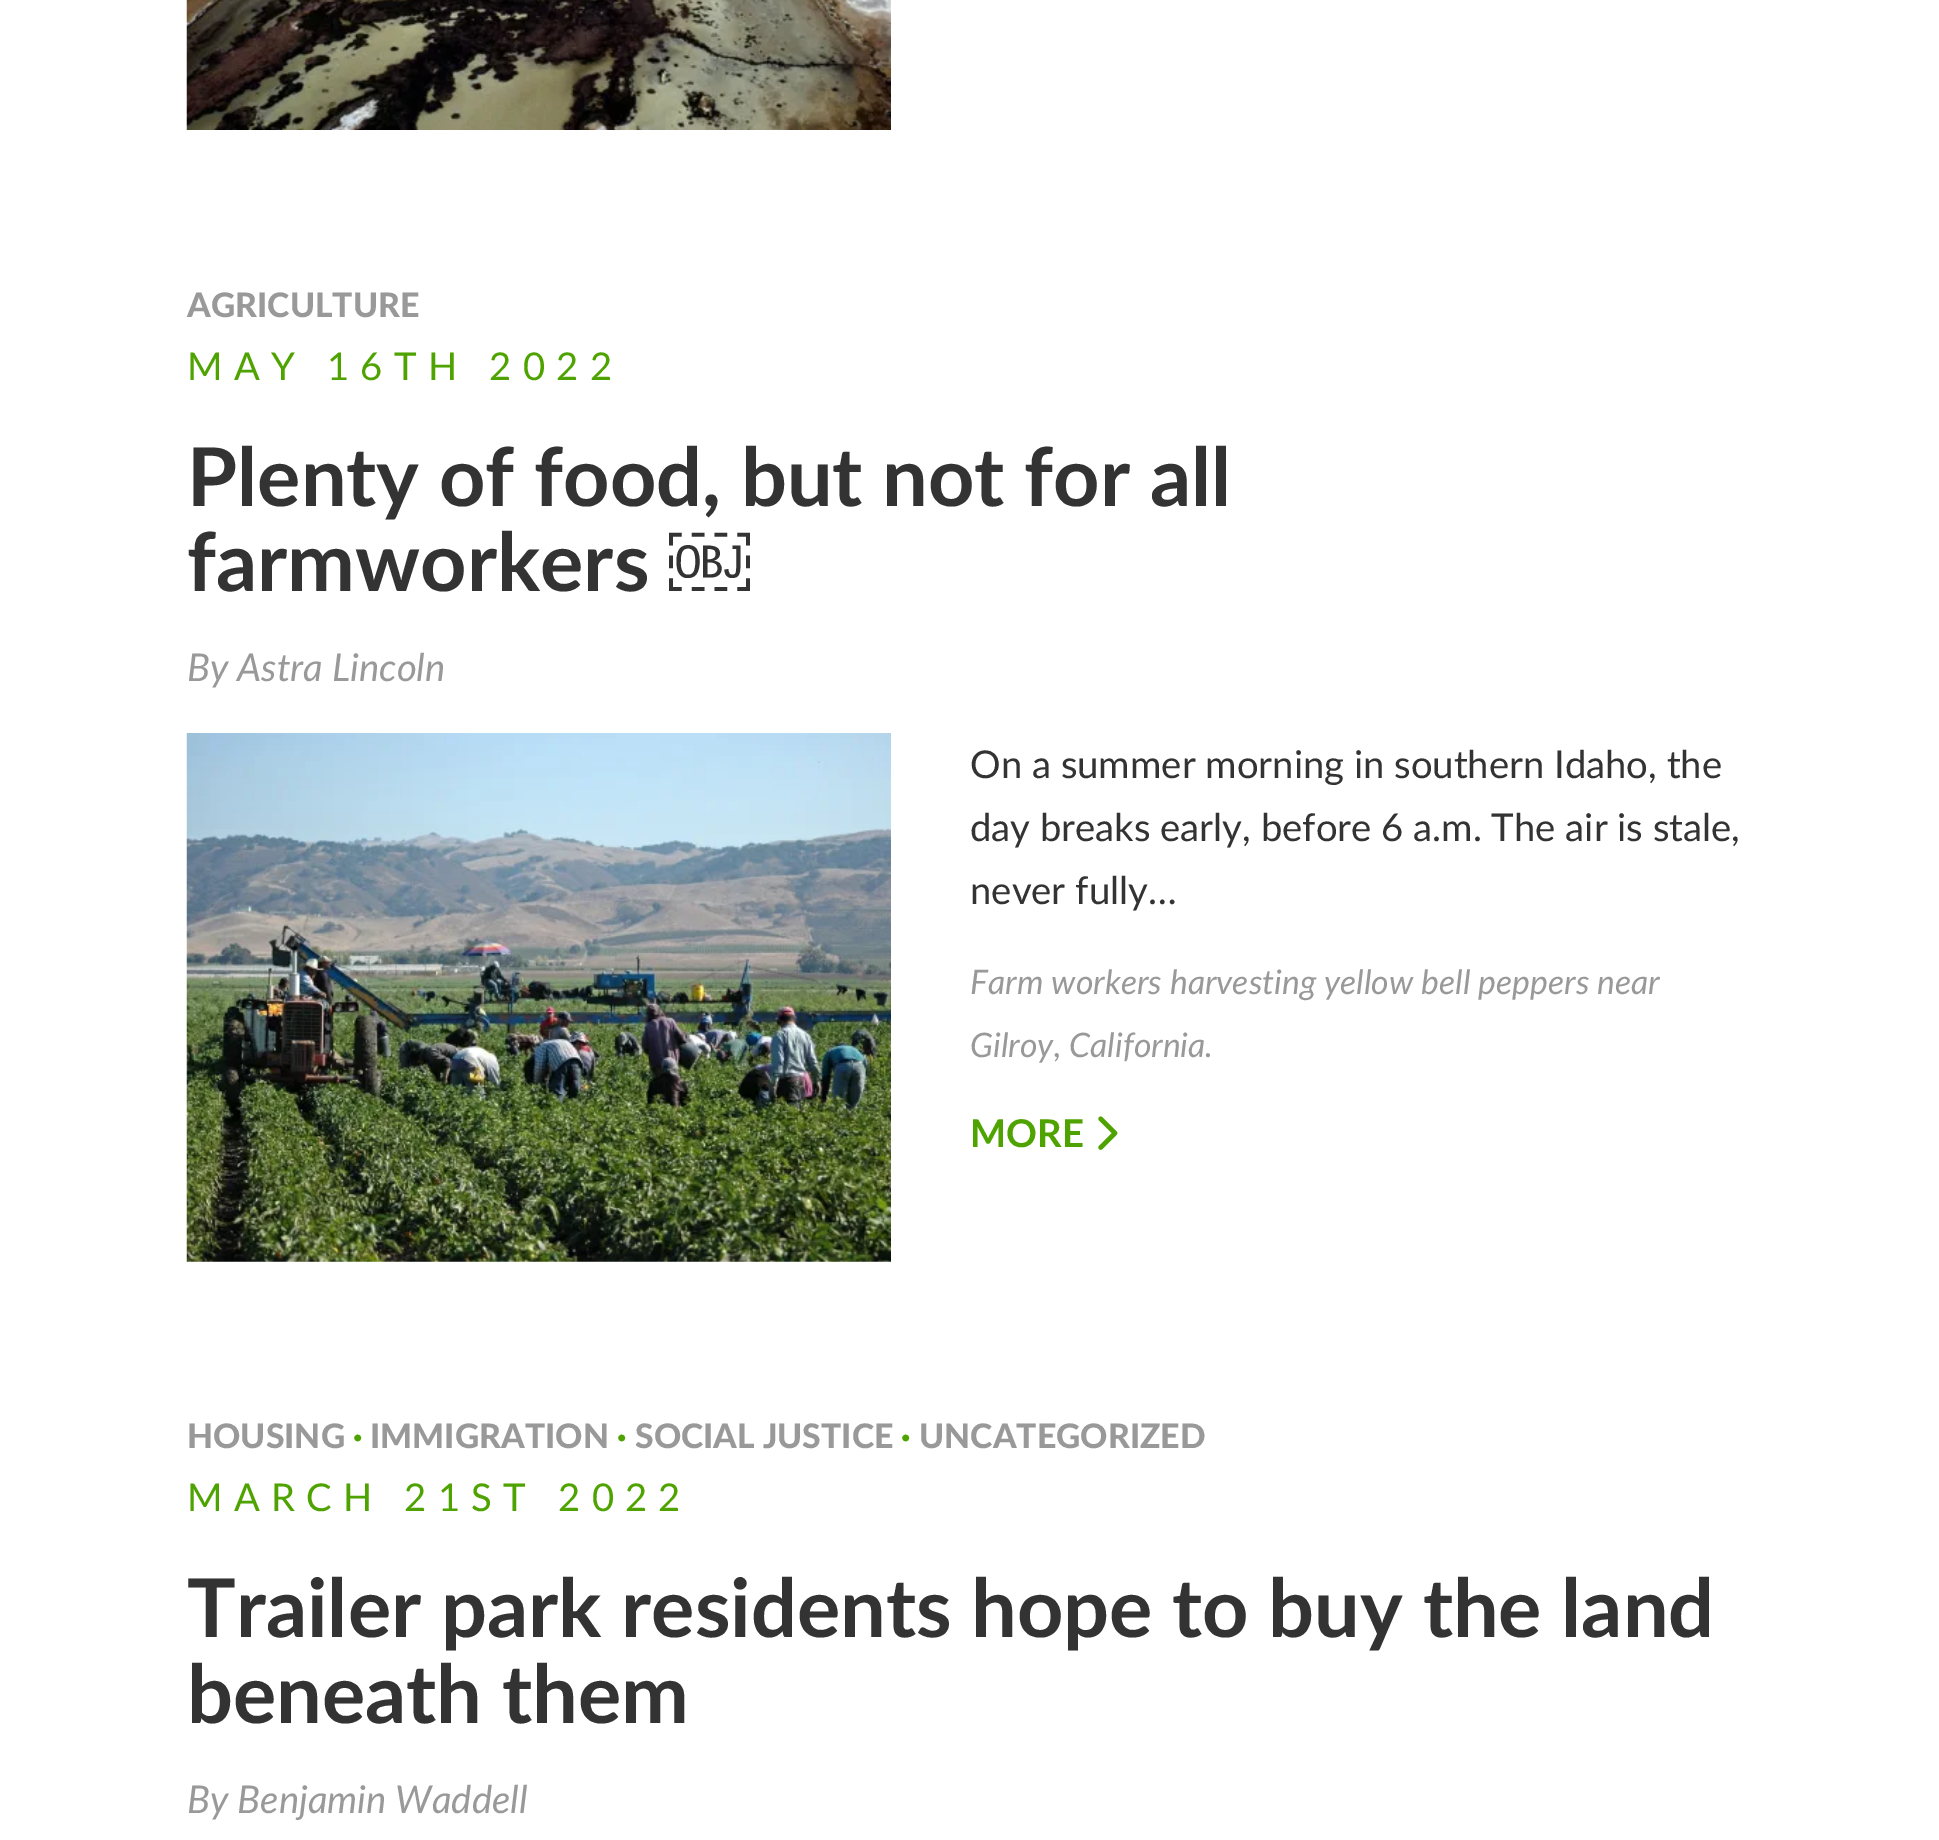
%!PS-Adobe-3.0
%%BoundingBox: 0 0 1939 1840
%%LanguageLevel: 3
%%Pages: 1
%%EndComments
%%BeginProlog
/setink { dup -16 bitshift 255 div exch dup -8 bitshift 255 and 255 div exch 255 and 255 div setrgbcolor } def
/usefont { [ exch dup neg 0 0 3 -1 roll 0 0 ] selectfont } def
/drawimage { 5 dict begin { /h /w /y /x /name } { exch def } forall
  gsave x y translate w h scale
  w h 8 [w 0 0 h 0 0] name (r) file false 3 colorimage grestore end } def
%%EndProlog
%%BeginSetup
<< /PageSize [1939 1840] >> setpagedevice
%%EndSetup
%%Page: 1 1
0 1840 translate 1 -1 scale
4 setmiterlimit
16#FFFFFF setink
0 0 1939 1840 rectfill
(img1.raw) 186 0 705 130 drawimage
/Lato-Black 33.75 usefont
16#999999 setink
187 317 moveto (AGRICULTURE) show
/Lato-Regular 38.25 usefont
16#4FA300 setink
187 380 moveto 11.25 0 (MAY 16TH 2022) ashow
/Lato-Bold 81 usefont
16#333333 setink
187 506 moveto (Plenty of food, but not for all) show
187 591 moveto (farmworkers) show
/LiberationSans-Bold 81 usefont
669 591 moveto (￼) show
/Lato-Italic 38.25 usefont
16#999999 setink
187 681 moveto (By Astra Lincoln) show
(img2.raw) 186 733 705 529 drawimage
/Lato-Regular 38.25 usefont
16#333333 setink
[
    [(On a summer morning in southern Idaho, the) 970 778]
    [(day breaks early, before 6 a.m. The air is stale,) 970 841]
    [(never fully…) 970 904]
] { aload pop moveto show } forall
/Lato-Italic 33.75 usefont
16#999999 setink
970 994 moveto (Farm workers harvesting yellow bell peppers near) show
970 1057 moveto (Gilroy, California.) show
/Lato-Bold 38.25 usefont
16#4FA300 setink
970 1147 moveto (MORE) show
(img3.raw) 1098 1116 20 34 drawimage
/Lato-Black 33.75 usefont
16#999999 setink
187 1448 moveto (HOUSING) show
16#4FA300 setink
353 1448 moveto (·) show
16#999999 setink
370 1448 moveto (IMMIGRATION) show
16#4FA300 setink
617 1448 moveto (·) show
16#999999 setink
635 1448 moveto (SOCIAL JUSTICE) show
16#4FA300 setink
901 1448 moveto (·) show
16#999999 setink
919 1448 moveto (UNCATEGORIZED) show
/Lato-Regular 38.25 usefont
16#4FA300 setink
187 1511 moveto 11.25 0 (MARCH 21ST 2022) ashow
/Lato-Bold 81 usefont
16#333333 setink
187 1637 moveto (Trailer park residents hope to buy the land) show
187 1723 moveto (beneath them) show
/Lato-Italic 38.25 usefont
16#999999 setink
187 1813 moveto (By Benjamin Waddell) show
showpage
%%EOF
